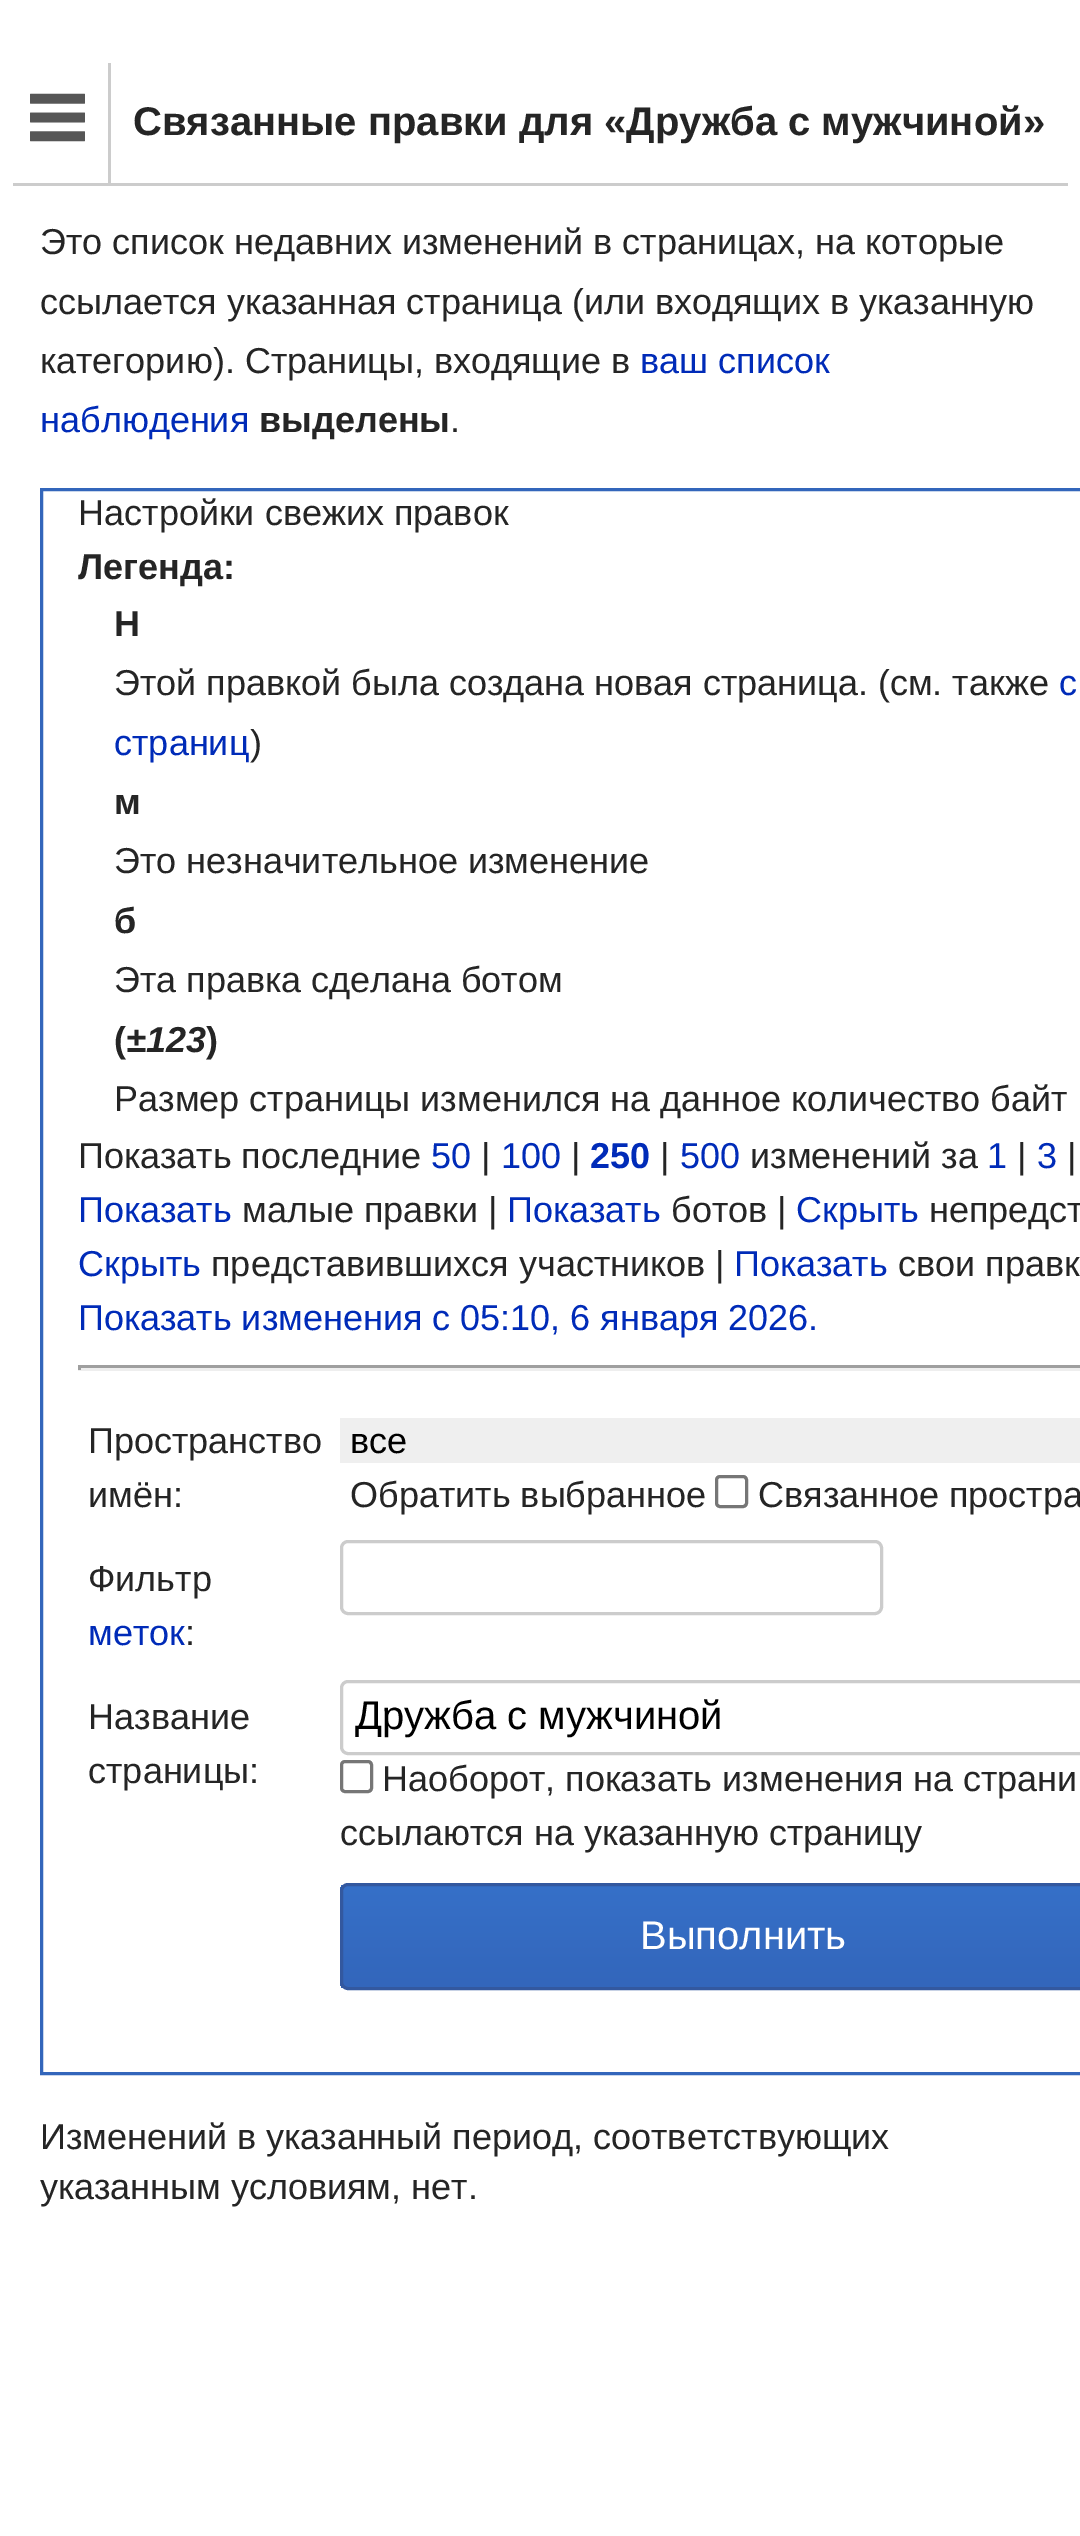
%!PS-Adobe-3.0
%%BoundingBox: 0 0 1080 2536
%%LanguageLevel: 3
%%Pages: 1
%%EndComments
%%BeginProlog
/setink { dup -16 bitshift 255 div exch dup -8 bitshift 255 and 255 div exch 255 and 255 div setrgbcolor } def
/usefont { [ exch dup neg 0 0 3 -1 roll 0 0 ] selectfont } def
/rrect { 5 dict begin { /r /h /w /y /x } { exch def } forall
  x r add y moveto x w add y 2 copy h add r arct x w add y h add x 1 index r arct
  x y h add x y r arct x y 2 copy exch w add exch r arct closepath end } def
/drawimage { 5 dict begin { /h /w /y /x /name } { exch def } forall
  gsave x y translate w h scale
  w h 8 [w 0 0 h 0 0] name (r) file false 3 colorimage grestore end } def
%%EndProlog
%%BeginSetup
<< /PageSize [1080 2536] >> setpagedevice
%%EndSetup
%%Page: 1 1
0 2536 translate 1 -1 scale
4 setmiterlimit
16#FFFFFF setink
0 0 1080 2536 rectfill
16#CCCCCC setink
13 183 1055 3 rectfill
(img1.raw) 30 93 55 49 drawimage
108 63 3 120 rectfill
/LiberationSans-Bold 40 usefont
16#252525 setink
133 135 moveto (Связанные правки для «Дружба с мужчиной») show
/LiberationSans-Regular 36 usefont
[
    [(Это список недавних изменений в страницах, на которые) 40 254]
    [(ссылается указанная страница \(или входящих в указанную) 40 314]
    [(категорию\). Страницы, входящие в) 40 373]
] { aload pop moveto show } forall
16#002BB8 setink
640 373 moveto (ваш список) show
40 432 moveto (наблюдения) show
/LiberationSans-Bold 36 usefont
16#252525 setink
259 432 moveto (выделены) show
/LiberationSans-Regular 36 usefont
450 432 moveto (.) show
16#3366BB setink
3 setlinewidth
41.5 489.5 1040 1584 rectstroke
16#252525 setink
78 525 moveto (Настройки свежих правок) show
/LiberationSans-Bold 36 usefont
78 579 moveto (Легенда:) show
114 636 moveto (Н) show
/LiberationSans-Regular 36 usefont
114 695 moveto (Этой правкой была создана новая страница. \(см. также) show
16#002BB8 setink
1059 695 moveto (с) show
114 755 moveto (страниц) show
16#252525 setink
250 755 moveto (\)) show
/LiberationSans-Bold 36 usefont
114 814 moveto (м) show
/LiberationSans-Regular 36 usefont
114 873 moveto (Это незначительное изменение) show
/LiberationSans-Bold 36 usefont
114 933 moveto (б) show
/LiberationSans-Regular 36 usefont
114 992 moveto (Эта правка сделана ботом) show
/LiberationSans-Bold 36 usefont
114 1052 moveto (\() show
/LiberationSans-BoldItalic 36 usefont
126 1052 moveto (±123) show
/LiberationSans-Bold 36 usefont
206 1052 moveto (\)) show
/LiberationSans-Regular 36 usefont
114 1111 moveto (Размер страницы изменился на данное количество байт) show
78 1168 moveto (Показать последние) show
16#002BB8 setink
431 1168 moveto (50) show
16#252525 setink
481 1168 moveto (|) show
16#002BB8 setink
501 1168 moveto (100) show
16#252525 setink
571 1168 moveto (|) show
/LiberationSans-Bold 36 usefont
16#002BB8 setink
590 1168 moveto (250) show
/LiberationSans-Regular 36 usefont
16#252525 setink
660 1168 moveto (|) show
16#002BB8 setink
680 1168 moveto (500) show
16#252525 setink
750 1168 moveto (изменений за) show
16#002BB8 setink
987 1168 moveto (1) show
16#252525 setink
1017 1168 moveto (|) show
16#002BB8 setink
1037 1168 moveto (3) show
16#252525 setink
1067 1168 moveto (|) show
16#002BB8 setink
78 1222 moveto (Показать) show
16#252525 setink
242 1222 moveto (малые правки |) show
16#002BB8 setink
507 1222 moveto (Показать) show
16#252525 setink
671 1222 moveto (ботов |) show
16#002BB8 setink
796 1222 moveto (Скрыть) show
16#252525 setink
929 1222 moveto (непредст) show
16#002BB8 setink
78 1276 moveto (Скрыть) show
16#252525 setink
211 1276 moveto (представившихся участников |) show
16#002BB8 setink
734 1276 moveto (Показать) show
16#252525 setink
898 1276 moveto (свои правк) show
16#002BB8 setink
78 1330 moveto (Показать изменения с 05:10, 6 января 2026.) show
[
    [78 1365 1002 3 16#9F9F9F]
    [78 1368 1002 3 16#EEEEEE]
    [78 1365 3 5 16#9F9F9F]
] { aload pop setink rectfill } forall
16#252525 setink
88 1453 moveto (Пространство) show
88 1507 moveto (имён:) show
16#EFEFEF setink
340 1418 740 45 rectfill
16#000000 setink
350 1453 moveto (все) show
16#252525 setink
350 1507 moveto (Обратить выбранное) show
16#767676 setink
716.5 1476.5 30 30 3.5 rrect stroke
16#252525 setink
758 1507 moveto (Связанное простра) show
88 1591 moveto (Фильтр) show
16#002BB8 setink
88 1645 moveto (меток) show
16#252525 setink
185 1645 moveto (:) show
16#CCCCCC setink
341.5 1541.5 540 72 6.5 rrect stroke
16#252525 setink
88 1729 moveto (Название) show
88 1783 moveto (страницы:) show
16#CCCCCC setink
341.5 1681.5 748 72 6.5 rrect stroke
/LiberationSans-Regular 40 usefont
16#000000 setink
355 1729 moveto (Дружба с мужчиной) show
16#767676 setink
341.5 1761.5 30 30 3.5 rrect stroke
/LiberationSans-Regular 36 usefont
16#252525 setink
382 1791 moveto (Наоборот, показать изменения на страни) show
340 1845 moveto (ссылаются на указанную страницу) show
gsave
340 1883 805 107 8 rrect clip newpath
gsave 340 1885 moveto 1080 1885 lineto 1080 1988 lineto 340 1988 lineto closepath clip newpath
<< /ShadingType 2 /ColorSpace /DeviceRGB /Coords [743 1885 743 1988] /Extend [true true] /Function << /FunctionType 2 /Domain [0 1] /C0 [0.212 0.439 0.784] /C1 [0.2 0.4 0.733] /N 1 >> >> shfill grestore
grestore
16#33589F setink
341.5 1884.5 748 104 6.5 rrect stroke
/LiberationSans-Regular 40 usefont
16#FFFFFF setink
640 1949 moveto (Выполнить) show
/LiberationSans-Regular 36 usefont
16#252525 setink
40 2149 moveto (Изменений в указанный период, соответствующих) show
40 2199 moveto (указанным условиям, нет.) show
showpage
%%EOF
